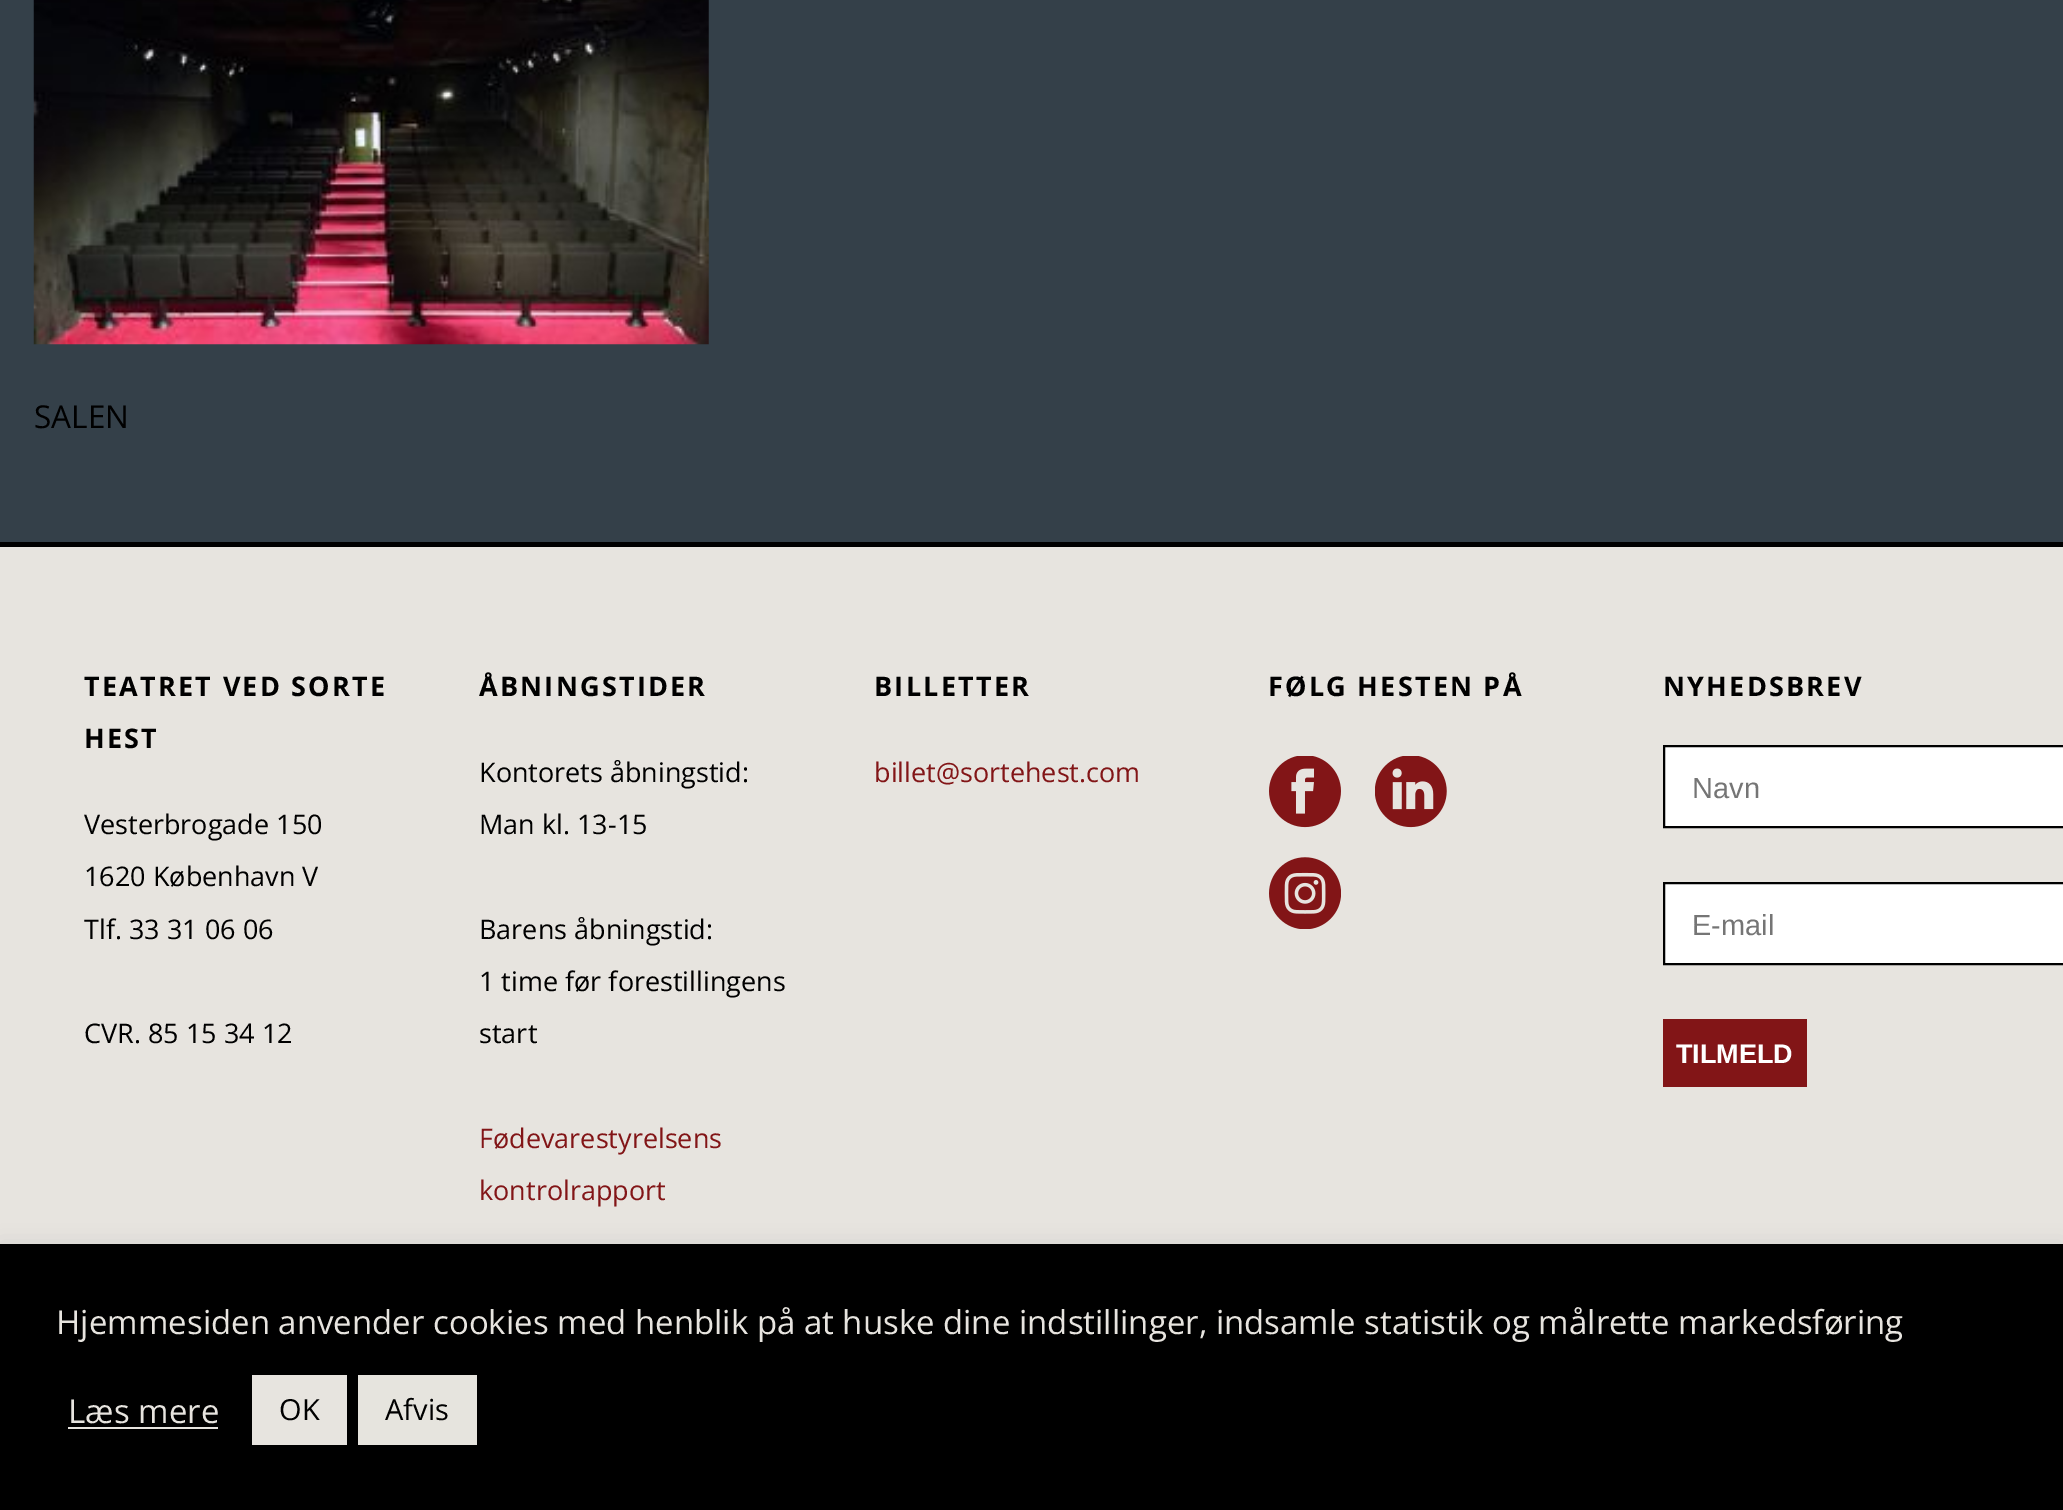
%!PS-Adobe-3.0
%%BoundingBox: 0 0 2063 1510
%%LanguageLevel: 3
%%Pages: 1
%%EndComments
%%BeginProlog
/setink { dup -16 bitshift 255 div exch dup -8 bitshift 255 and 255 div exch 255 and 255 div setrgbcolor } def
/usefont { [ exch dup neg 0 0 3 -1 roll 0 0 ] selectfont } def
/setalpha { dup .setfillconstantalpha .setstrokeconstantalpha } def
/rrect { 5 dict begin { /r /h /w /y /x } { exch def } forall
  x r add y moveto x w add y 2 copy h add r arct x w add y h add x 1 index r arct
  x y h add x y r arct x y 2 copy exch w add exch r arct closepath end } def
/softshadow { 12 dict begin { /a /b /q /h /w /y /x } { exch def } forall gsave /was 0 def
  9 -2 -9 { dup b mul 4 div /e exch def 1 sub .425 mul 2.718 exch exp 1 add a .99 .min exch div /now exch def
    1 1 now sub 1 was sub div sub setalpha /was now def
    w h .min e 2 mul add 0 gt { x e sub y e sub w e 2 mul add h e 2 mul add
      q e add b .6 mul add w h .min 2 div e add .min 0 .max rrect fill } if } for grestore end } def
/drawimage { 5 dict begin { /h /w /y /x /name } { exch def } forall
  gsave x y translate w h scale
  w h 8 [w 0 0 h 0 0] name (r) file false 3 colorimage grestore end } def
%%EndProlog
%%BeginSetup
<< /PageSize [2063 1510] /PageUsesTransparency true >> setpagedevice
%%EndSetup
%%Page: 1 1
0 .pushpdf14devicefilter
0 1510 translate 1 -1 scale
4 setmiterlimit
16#344049 setink
0 0 2063 1510 rectfill
(img1.raw) 33 0 676 345 drawimage
/OpenSans-Regular 31.5 usefont
16#000000 setink
34 428 moveto (SALEN) show
16#E7E4DF setink
0 547 2063 697 rectfill
16#000000 setink
0 542 2063 5 rectfill
/OpenSans-Bold 27 usefont
84 696 moveto 2.25 0 (TEATRET VED SORTE) ashow
84 748 moveto 2.25 0 (HEST) ashow
/OpenSans-Regular 27 usefont
[
    [(Vesterbrogade 150) 84 834]
    [(1620 København V) 84 886]
    [(Tlf. 33 31 06 06) 84 939]
    [(CVR. 85 15 34 12) 84 1043]
] { aload pop moveto show } forall
/OpenSans-Bold 27 usefont
479 696 moveto 2.25 0 (ÅBNINGSTIDER) ashow
/OpenSans-Regular 27 usefont
[
    [(Kontorets åbningstid:) 479 782]
    [(Man kl. 13-15) 479 834]
    [(Barens åbningstid:) 479 939]
    [(1 time før forestillingens) 479 991]
    [(start) 479 1043]
] { aload pop moveto show } forall
16#821517 setink
479 1148 moveto (Fødevarestyrelsens) show
479 1200 moveto (kontrolrapport) show
/OpenSans-Bold 27 usefont
16#000000 setink
874 696 moveto 2.25 0 (BILLETTER) ashow
/OpenSans-Regular 27 usefont
16#821517 setink
874 782 moveto (billet@sortehest.com) show
/OpenSans-Bold 27 usefont
16#000000 setink
1268 696 moveto 2.25 0 (FØLG HESTEN PÅ) ashow
(img2.raw) 1269 756 72 72 drawimage
(img3.raw) 1375 756 72 72 drawimage
(img4.raw) 1269 857 72 72 drawimage
1663 696 moveto 2.25 0 (NYHEDSBREV) ashow
16#FFFFFF setink
1664 746 moveto 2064 746 lineto 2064 827 lineto 1664 827 lineto closepath gsave fill grestore
16#000000 setink
2 setlinewidth
stroke
/LiberationSans-Regular 29 usefont
16#757575 setink
1692 798 moveto (Navn) show
16#FFFFFF setink
1664 883 moveto 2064 883 lineto 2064 964 lineto 1664 964 lineto closepath gsave fill grestore
16#000000 setink
stroke
16#757575 setink
1692 935 moveto (E-mail) show
16#821517 setink
1663 1019 144 68 rectfill
/LiberationSans-Bold 27 usefont
16#FFFFFF setink
1676 1063 moveto (TILMELD) show
16#ACABAB setink
0 1242 2063 268 0 11 0.3 softshadow
16#000000 setink
0 1244 2063 266 rectfill
/OpenSans-Regular 33 usefont
16#E7E4DF setink
56 1334 moveto (Hjemmesiden anvender cookies med henblik på at huske dine indstillinger, indsamle statistik og målrette markedsføring) show
68 1423 moveto (Læs mere) show
68 1427 150 2 rectfill
252 1375 95 70 rectfill
/OpenSans-Regular 29 usefont
16#000000 setink
279 1420 moveto (OK) show
16#E6E4DE setink
358 1375 119 70 rectfill
16#000000 setink
385 1420 moveto (Afvis) show
.poppdf14devicefilter showpage
%%EOF
